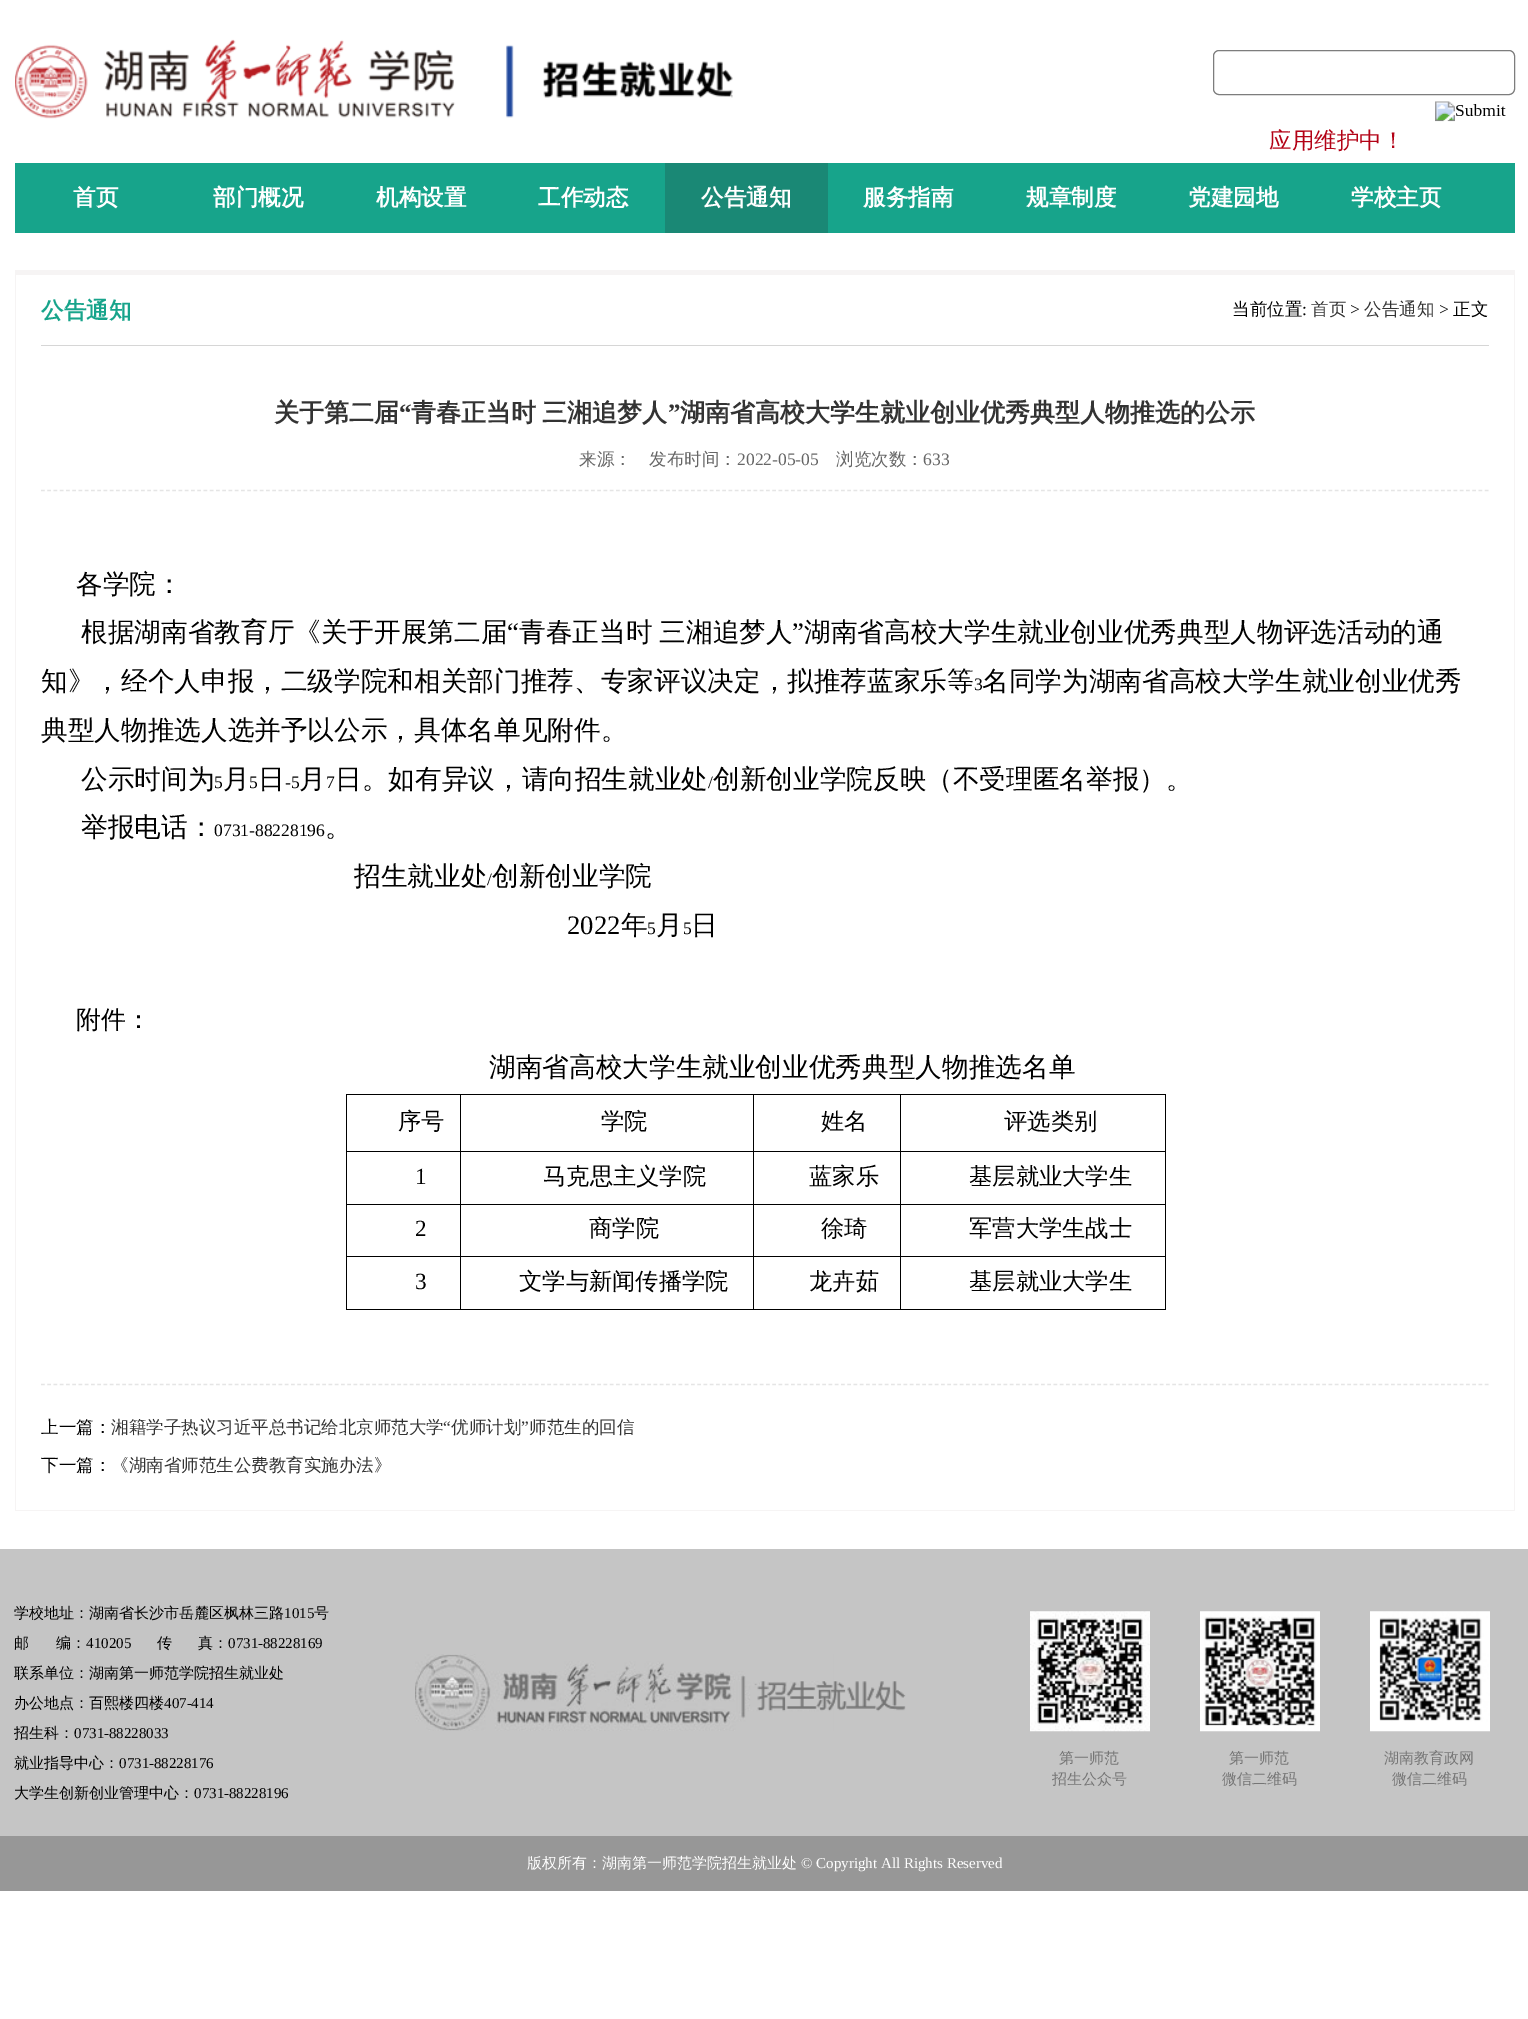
%!PS-Adobe-3.0
%%BoundingBox: 0 0 1528 2019
%%LanguageLevel: 3
%%Pages: 1
%%EndComments
%%BeginProlog
/setink { dup -16 bitshift 255 div exch dup -8 bitshift 255 and 255 div exch 255 and 255 div setrgbcolor } def
/usefont { [ exch dup neg 0 0 3 -1 roll 0 0 ] selectfont } def
/rrect { 5 dict begin { /r /h /w /y /x } { exch def } forall
  x r add y moveto x w add y 2 copy h add r arct x w add y h add x 1 index r arct
  x y h add x y r arct x y 2 copy exch w add exch r arct closepath end } def
/drawimage { 5 dict begin { /h /w /y /x /name } { exch def } forall
  gsave x y translate w h scale
  w h 8 [w 0 0 h 0 0] name (r) file false 3 colorimage grestore end } def
%%EndProlog
%%BeginSetup
<< /PageSize [1528 2019] >> setpagedevice
%%EndSetup
%%Page: 1 1
0 2019 translate 1 -1 scale
4 setmiterlimit
16#FFFFFF setink
0 0 1528 2019 rectfill
(img1.raw) 15 39 718 80 drawimage
16#7D7D7D setink
1213.5 50.5 301 44 5.5 rrect stroke
(img2.raw) 1435 101 71 21 drawimage
/WenQuanYiZenHei-Medium 22.5 usefont
16#B30216 setink
1269 148 moveto (应用维护中！) show
16#17A48B setink
15 163 1500 70 rectfill
/WenQuanYiZenHei-Bold 22.5 usefont
16#FFFFFF setink
[
    [(首页) 73 205]
    [(部门概况) 213 205]
    [(机构设置) 376 205]
    [(工作动态) 538 205]
] { aload pop moveto show } forall
16#1A8875 setink
665 163 163 70 rectfill
16#FFFFFF setink
[
    [(公告通知) 701 205]
    [(服务指南) 863 205]
    [(规章制度) 1026 205]
    [(党建园地) 1188 205]
    [(学校主页) 1351 205]
] { aload pop moveto show } forall
[
    [15 270 1500 5 16#F6F4F4]
    [1514 270 1 1241 16#F6F4F4]
    [15 1510 1500 1 16#F6F4F4]
    [15 270 1 1241 16#F6F4F4]
    [41 345 1448 1 16#D6D6D6]
] { aload pop setink rectfill } forall
16#17A48B setink
41 318 moveto (公告通知) show
/WenQuanYiZenHei-Medium 17.5 usefont
16#000000 setink
1232 315 moveto (当前位置) show
/LiberationSerif-Regular 17.5 usefont
1302 315 moveto (:) show
/WenQuanYiZenHei-Medium 17.5 usefont
16#333333 setink
1311 315 moveto (首页) show
/LiberationSerif-Regular 17.5 usefont
16#000000 setink
1350 315 moveto (>) show
/WenQuanYiZenHei-Medium 17.5 usefont
16#333333 setink
1364 315 moveto (公告通知) show
/LiberationSerif-Regular 17.5 usefont
16#000000 setink
1439 315 moveto (>) show
/WenQuanYiZenHei-Medium 17.5 usefont
1453 315 moveto (正文) show
/WenQuanYiZenHei-Bold 25 usefont
16#333333 setink
274 421 moveto (关于第二届) show
/LiberationSerif-Bold 25 usefont
399 421 moveto (“) show
/WenQuanYiZenHei-Bold 25 usefont
411 421 moveto -1 0 32 (青春正当时 三湘追梦人) widthshow
/LiberationSerif-Bold 25 usefont
668 421 moveto (”) show
/WenQuanYiZenHei-Bold 25 usefont
680 421 moveto (湖南省高校大学生就业创业优秀典型人物推选的公示) show
16#E5E5E5 setink
1.2 setlinewidth
[3.75 2.5] 0 setdash
41 490.5 moveto 1489 490.5 lineto stroke
/WenQuanYiZenHei-Medium 17.5 usefont
16#666666 setink
579 465 moveto (来源：) show
649 465 moveto (发布时间：) show
/LiberationSerif-Regular 17.5 usefont
737 465 moveto (2022-05-05) show
/WenQuanYiZenHei-Medium 17.5 usefont
836 465 moveto (浏览次数：) show
/LiberationSerif-Regular 17.5 usefont
923 465 moveto (633) show
/WenQuanYiZenHei-Medium 26.65 usefont
16#000000 setink
76 593 moveto (各学院：) show
81 641 moveto (根据湖南省教育厅《关于开展第二届) show
/LiberationSerif-Regular 26.65 usefont
507 641 moveto (“) show
/WenQuanYiZenHei-Medium 26.65 usefont
519 641 moveto -1 0 32 (青春正当时 三湘追梦人) widthshow
/LiberationSerif-Regular 26.65 usefont
792 641 moveto (”) show
/WenQuanYiZenHei-Medium 26.65 usefont
804 641 moveto (湖南省高校大学生就业创业优秀典型人物评选活动的通) show
41 690 moveto (知》，经个人申报，二级学院和相关部门推荐、专家评议决定，拟推荐蓝家乐等) show
/LiberationSerif-Regular 17.5 usefont
974 690 moveto (3) show
/WenQuanYiZenHei-Medium 26.65 usefont
[
    [(名同学为湖南省高校大学生就业创业优秀) 982 690]
    [(典型人物推选人选并予以公示，具体名单见附件。) 41 739]
    [(公示时间为) 81 788]
] { aload pop moveto show } forall
/LiberationSerif-Regular 17.5 usefont
214 788 moveto (5) show
/WenQuanYiZenHei-Medium 26.65 usefont
223 788 moveto (月) show
/LiberationSerif-Regular 17.5 usefont
249 788 moveto (5) show
/WenQuanYiZenHei-Medium 26.65 usefont
258 788 moveto (日) show
/LiberationSerif-Regular 17.5 usefont
285 788 moveto (-5) show
/WenQuanYiZenHei-Medium 26.65 usefont
299 788 moveto (月) show
/LiberationSerif-Regular 17.5 usefont
326 788 moveto (7) show
/WenQuanYiZenHei-Medium 26.65 usefont
335 788 moveto (日。如有异议，请向招生就业处) show
/LiberationSerif-Regular 17.5 usefont
708 788 moveto (/) show
/WenQuanYiZenHei-Medium 26.65 usefont
713 788 moveto (创新创业学院反映（不受理匿名举报）。) show
81 836 moveto (举报电话：) show
/LiberationSerif-Regular 17.5 usefont
214 836 moveto (0731-88228196) show
/WenQuanYiZenHei-Medium 26.65 usefont
325 836 moveto (。) show
354 885 moveto (招生就业处) show
/LiberationSerif-Regular 17.5 usefont
487 885 moveto (/) show
/WenQuanYiZenHei-Medium 26.65 usefont
492 885 moveto (创新创业学院) show
/LiberationSerif-Regular 26.65 usefont
567 934 moveto (2022) show
/WenQuanYiZenHei-Medium 26.65 usefont
621 934 moveto (年) show
/LiberationSerif-Regular 17.5 usefont
647 934 moveto (5) show
/WenQuanYiZenHei-Medium 26.65 usefont
656 934 moveto (月) show
/LiberationSerif-Regular 17.5 usefont
683 934 moveto (5) show
/WenQuanYiZenHei-Medium 26.65 usefont
691 934 moveto (日) show
/WenQuanYiZenHei-Medium 25 usefont
76 1028 moveto (附件：) show
/WenQuanYiZenHei-Medium 26.65 usefont
489 1076 moveto (湖南省高校大学生就业创业优秀典型人物推选名单) show
[
    [346 1094 820 1 16#000000]
    [1165 1151 1 159 16#000000]
    [1165 1094 1 59 16#000000]
    [900 1309 266 1 16#000000]
    [900 1256 1 54 16#000000]
    [900 1256 266 1 16#000000]
    [900 1204 1 54 16#000000]
    [900 1204 266 1 16#000000]
    [900 1151 1 54 16#000000]
    [900 1151 266 1 16#000000]
    [900 1094 1 59 16#000000]
    [753 1309 148 1 16#000000]
    [753 1256 1 54 16#000000]
    [753 1256 148 1 16#000000]
    [753 1204 1 54 16#000000]
    [753 1204 148 1 16#000000]
    [753 1151 1 54 16#000000]
    [753 1151 148 1 16#000000]
    [753 1094 1 59 16#000000]
    [460 1309 294 1 16#000000]
    [460 1256 1 54 16#000000]
    [460 1256 294 1 16#000000]
    [460 1204 1 54 16#000000]
    [460 1204 294 1 16#000000]
    [460 1151 1 54 16#000000]
    [460 1151 294 1 16#000000]
    [460 1094 1 59 16#000000]
    [346 1309 115 1 16#000000]
    [346 1256 1 54 16#000000]
    [346 1256 115 1 16#000000]
    [346 1204 1 54 16#000000]
    [346 1204 115 1 16#000000]
    [346 1151 1 54 16#000000]
    [346 1151 115 1 16#000000]
    [346 1094 1 59 16#000000]
] { aload pop setink rectfill } forall
/WenQuanYiZenHei-Medium 23.25 usefont
[
    [(序号) 398 1129]
    [(学院) 601 1129]
    [(姓名) 821 1129]
    [(评选类别) 1004 1129]
] { aload pop moveto show } forall
/LiberationSerif-Regular 23.25 usefont
415 1184 moveto (1) show
/WenQuanYiZenHei-Medium 23.25 usefont
[
    [(马克思主义学院) 543 1184]
    [(蓝家乐) 809 1184]
    [(基层就业大学生) 969 1184]
] { aload pop moveto show } forall
/LiberationSerif-Regular 23.25 usefont
415 1236 moveto (2) show
/WenQuanYiZenHei-Medium 23.25 usefont
[
    [(商学院) 589 1236]
    [(徐琦) 821 1236]
    [(军营大学生战士) 969 1236]
] { aload pop moveto show } forall
/LiberationSerif-Regular 23.25 usefont
415 1289 moveto (3) show
/WenQuanYiZenHei-Medium 23.25 usefont
[
    [(文学与新闻传播学院) 519 1289]
    [(龙卉茹) 809 1289]
    [(基层就业大学生) 969 1289]
] { aload pop moveto show } forall
16#E5E5E5 setink
41 1384.5 moveto 1489 1384.5 lineto stroke
/WenQuanYiZenHei-Medium 17.5 usefont
16#000000 setink
41 1433 moveto (上一篇：) show
16#333333 setink
111 1433 moveto (湘籍学子热议习近平总书记给北京师范大学) show
/LiberationSerif-Regular 17.5 usefont
443 1433 moveto (“) show
/WenQuanYiZenHei-Medium 17.5 usefont
451 1433 moveto (优师计划) show
/LiberationSerif-Regular 17.5 usefont
521 1433 moveto (”) show
/WenQuanYiZenHei-Medium 17.5 usefont
529 1433 moveto (师范生的回信) show
16#000000 setink
41 1471 moveto (下一篇：) show
16#333333 setink
111 1471 moveto (《湖南省师范生公费教育实施办法》) show
16#C5C5C5 setink
0 1549 1528 287 rectfill
(img3.raw) 415 1654 491 77 drawimage
/WenQuanYiZenHei-Medium 15 usefont
16#000000 setink
14 1618 moveto (学校地址：湖南省长沙市岳麓区枫林三路) show
/LiberationSerif-Regular 15 usefont
284 1618 moveto (1015) show
/WenQuanYiZenHei-Medium 15 usefont
[
    [(号) 314 1618]
    [(邮) 14 1648]
    [(编：) 56 1648]
] { aload pop moveto show } forall
/LiberationSerif-Regular 15 usefont
86 1648 moveto (410205) show
/WenQuanYiZenHei-Medium 15 usefont
157 1648 moveto (传) show
198 1648 moveto (真：) show
/LiberationSerif-Regular 15 usefont
228 1648 moveto (0731-88228169) show
/WenQuanYiZenHei-Medium 15 usefont
14 1678 moveto (联系单位：湖南第一师范学院招生就业处) show
14 1708 moveto (办公地点：百熙楼四楼) show
/LiberationSerif-Regular 15 usefont
164 1708 moveto (407-414) show
/WenQuanYiZenHei-Medium 15 usefont
14 1738 moveto (招生科：) show
/LiberationSerif-Regular 15 usefont
74 1738 moveto (0731-88228033) show
/WenQuanYiZenHei-Medium 15 usefont
14 1768 moveto (就业指导中心：) show
/LiberationSerif-Regular 15 usefont
119 1768 moveto (0731-88228176) show
/WenQuanYiZenHei-Medium 15 usefont
14 1798 moveto (大学生创新创业管理中心：) show
/LiberationSerif-Regular 15 usefont
194 1798 moveto (0731-88228196) show
(img4.raw) 1030 1611 120 121 drawimage
/WenQuanYiZenHei-Medium 15 usefont
16#757575 setink
1059 1763 moveto (第一师范) show
1052 1784 moveto (招生公众号) show
(img5.raw) 1200 1611 120 121 drawimage
1229 1763 moveto (第一师范) show
1222 1784 moveto (微信二维码) show
(img6.raw) 1370 1611 120 121 drawimage
1384 1763 moveto (湖南教育政网) show
1392 1784 moveto (微信二维码) show
16#979797 setink
0 1836 1528 55 rectfill
16#FFFFFF setink
527 1868 moveto (版权所有：湖南第一师范学院招生就业处) show
/LiberationSerif-Regular 15 usefont
801 1868 moveto (© Copyright All Rights Reserved) show
showpage
%%EOF
